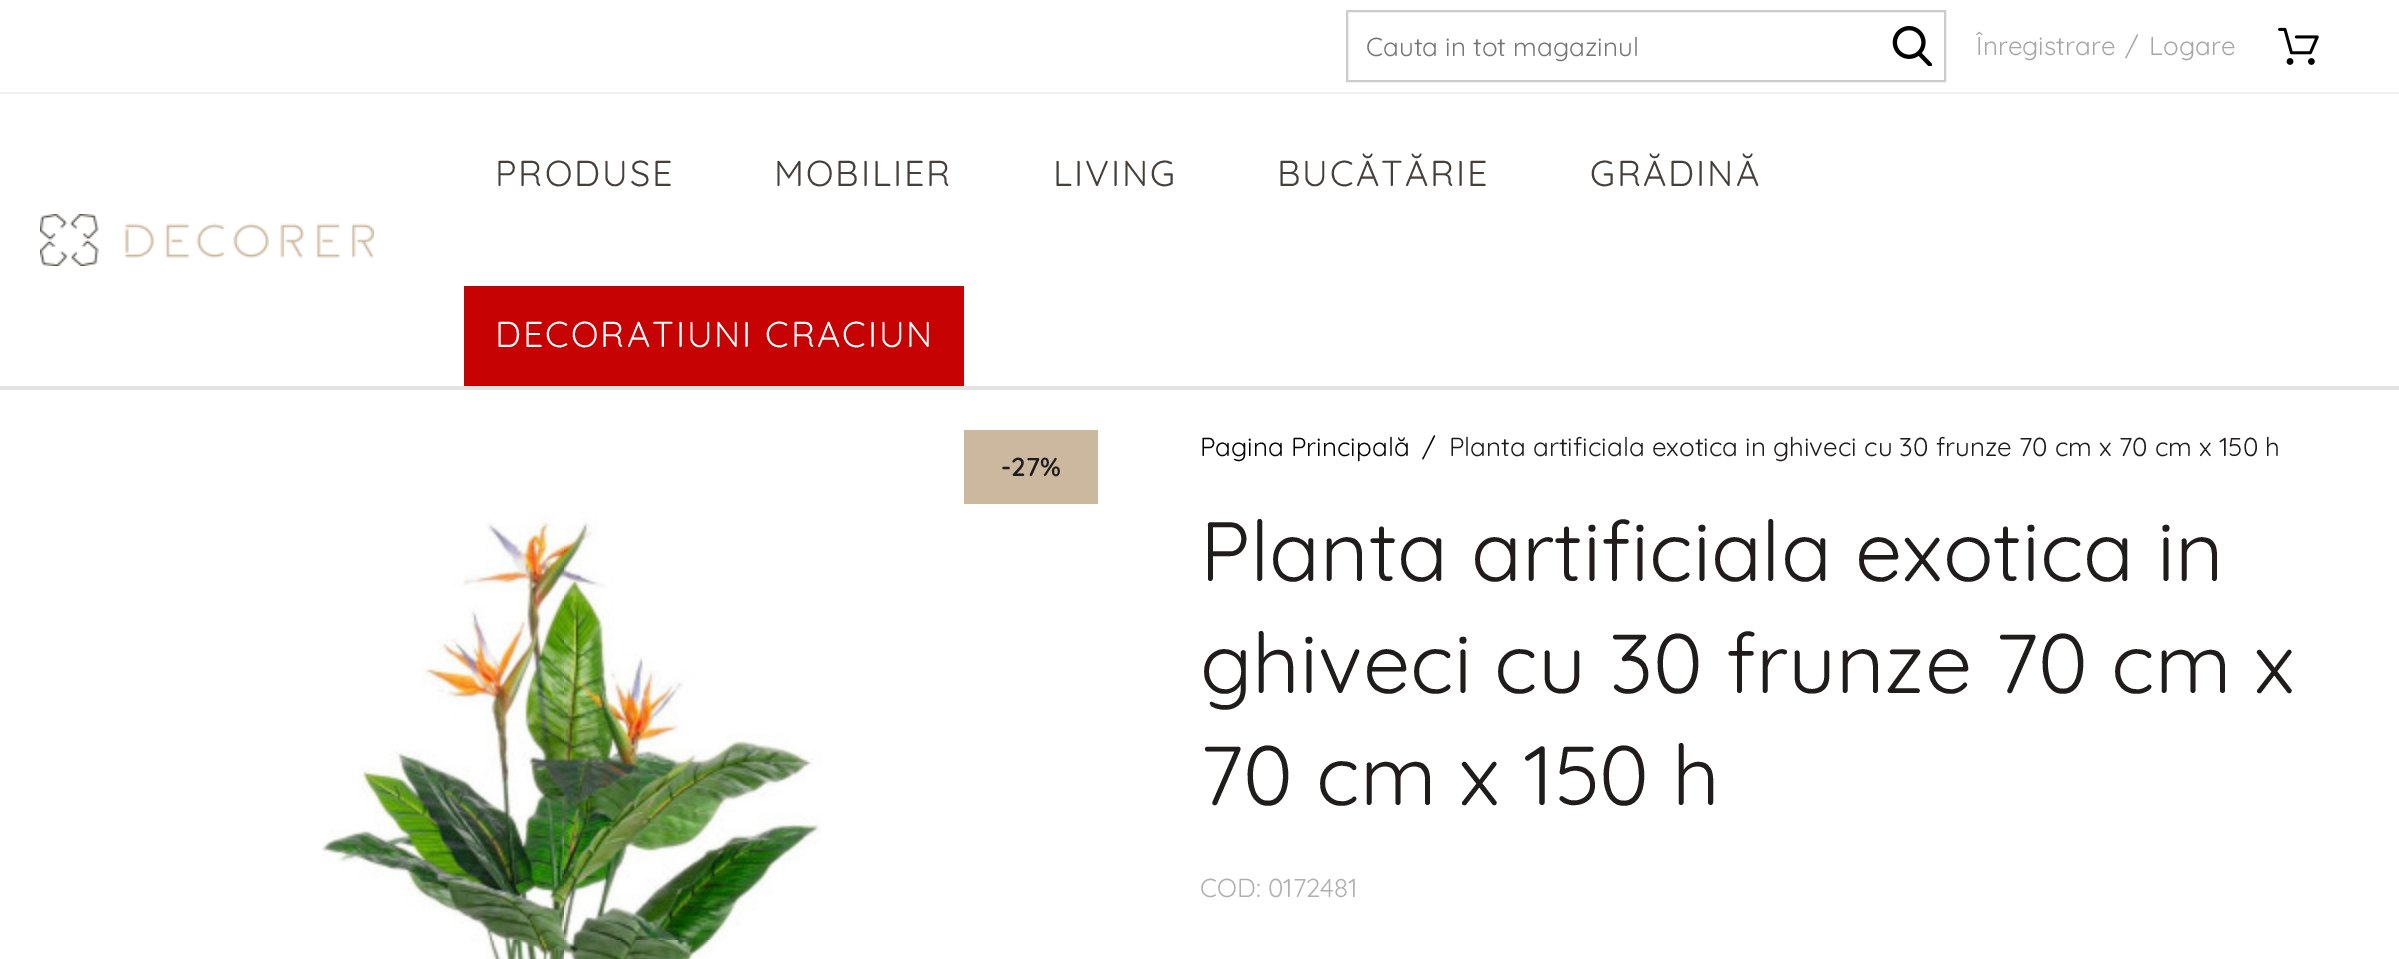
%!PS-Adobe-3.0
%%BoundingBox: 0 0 2399 959
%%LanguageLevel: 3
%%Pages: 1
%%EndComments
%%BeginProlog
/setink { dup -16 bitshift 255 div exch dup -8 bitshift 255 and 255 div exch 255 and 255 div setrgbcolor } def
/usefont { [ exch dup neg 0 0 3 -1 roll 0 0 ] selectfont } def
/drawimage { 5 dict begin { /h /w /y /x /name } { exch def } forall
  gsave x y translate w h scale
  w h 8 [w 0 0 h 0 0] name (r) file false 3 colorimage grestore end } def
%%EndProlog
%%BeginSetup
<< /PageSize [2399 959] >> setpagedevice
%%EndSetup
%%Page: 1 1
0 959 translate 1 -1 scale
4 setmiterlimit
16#FFFFFF setink
0 0 2399 959 rectfill
16#E4E3E2 setink
0 386 2399 4 rectfill
16#CCCCCC setink
2 setlinewidth
1347 11 598 70 rectstroke
/Quicksand-Regular 26 usefont
16#757575 setink
1366 56 moveto (Cauta in tot magazinul) show
(img1.raw) 1892 26 40 40 drawimage
16#A6A6A6 setink
[
    [(Înregistrare) 1976 55]
    [(/) 2125 55]
    [(Logare) 2149 55]
] { aload pop moveto show } forall
(img2.raw) 2278 27 41 38 drawimage
16#F2F1F1 setink
0 92 2399 2 rectfill
(img3.raw) 40 214 334 52 drawimage
/Quicksand-Regular 36 usefont
16#453F3C setink
495 186 moveto 2 0 (PRODUSE) ashow
774 186 moveto 2 0 (MOBILIER) ashow
1053 186 moveto 2 0 (LIVING) ashow
1277 186 moveto 2 0 (BUCĂTĂRIE) ashow
1590 186 moveto 2 0 (GRĂDINĂ) ashow
16#C70202 setink
464 286 500 100 rectfill
16#FFFFFF setink
495 347 moveto 2 0 (DECORATIUNI CRACIUN) ashow
16#CCB89F setink
964 430 134 74 rectfill
/Quicksand-SemiBold 26 usefont
16#1F1C1B setink
1001 476 moveto (-27%) show
(img4.raw) 321 511 500 448 drawimage
/Quicksand-Regular 26 usefont
16#000000 setink
1200 456 moveto (Pagina Principală) show
1422 456 moveto (/) show
16#1F1C1B setink
1449 456 moveto (Planta artificiala exotica in ghiveci cu 30 frunze 70 cm x 70 cm x 150 h) show
/Quicksand-Regular 84 usefont
[
    [(Planta artificiala exotica in) 1200 581]
    [(ghiveci cu 30 frunze 70 cm x) 1200 693]
    [(70 cm x 150 h) 1200 805]
] { aload pop moveto show } forall
/Quicksand-Regular 26 usefont
16#B1B0AF setink
1200 897 moveto (COD: 0172481) show
showpage
%%EOF
